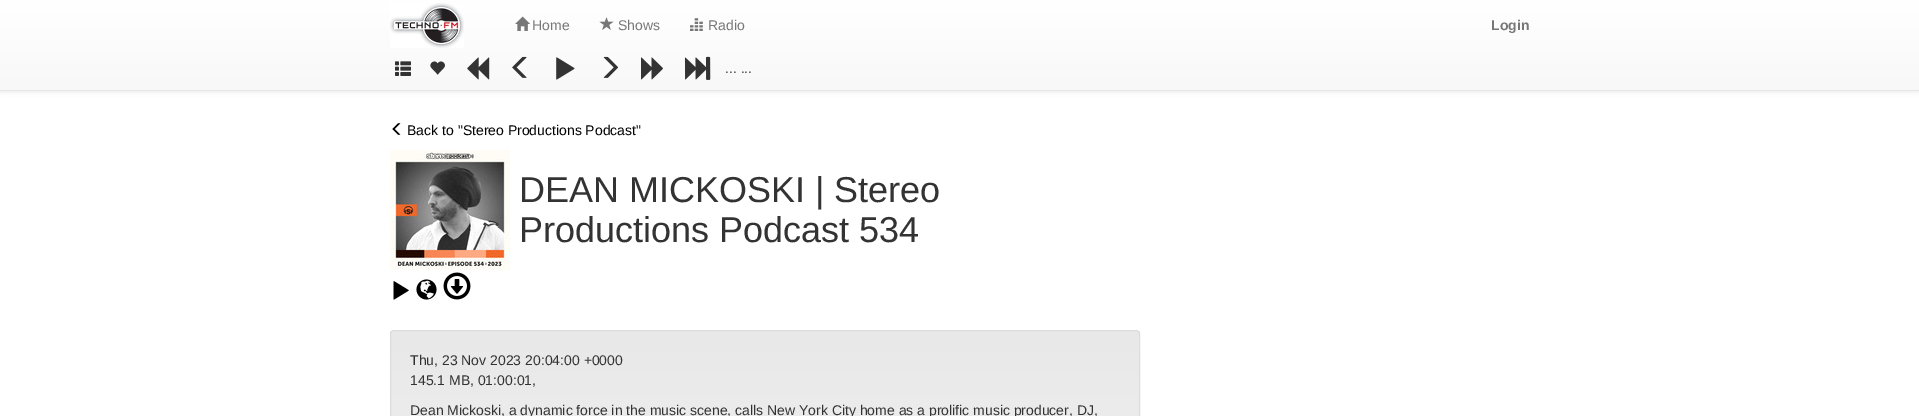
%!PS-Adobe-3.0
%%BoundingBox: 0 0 1919 416
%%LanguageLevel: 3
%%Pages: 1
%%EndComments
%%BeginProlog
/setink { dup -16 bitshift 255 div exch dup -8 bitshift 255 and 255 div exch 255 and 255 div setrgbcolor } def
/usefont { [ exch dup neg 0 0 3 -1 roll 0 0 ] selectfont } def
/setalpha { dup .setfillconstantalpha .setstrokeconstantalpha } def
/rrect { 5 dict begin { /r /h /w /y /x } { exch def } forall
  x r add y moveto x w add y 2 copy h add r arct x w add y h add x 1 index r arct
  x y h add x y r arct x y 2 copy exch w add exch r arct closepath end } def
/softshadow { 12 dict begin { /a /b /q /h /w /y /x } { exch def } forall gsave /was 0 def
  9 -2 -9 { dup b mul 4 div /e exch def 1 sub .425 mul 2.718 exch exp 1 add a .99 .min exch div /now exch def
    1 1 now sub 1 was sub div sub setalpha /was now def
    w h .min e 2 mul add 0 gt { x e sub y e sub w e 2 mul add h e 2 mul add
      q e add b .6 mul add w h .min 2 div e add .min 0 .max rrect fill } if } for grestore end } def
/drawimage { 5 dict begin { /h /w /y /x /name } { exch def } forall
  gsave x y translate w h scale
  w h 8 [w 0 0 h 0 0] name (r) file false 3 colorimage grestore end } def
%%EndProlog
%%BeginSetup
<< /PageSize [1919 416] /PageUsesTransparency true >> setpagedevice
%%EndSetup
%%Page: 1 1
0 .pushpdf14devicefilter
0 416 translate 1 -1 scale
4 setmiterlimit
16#FFFFFF setink
0 0 1919 416 rectfill
16#000000 setink
0 1 1919 91 0 2.5 0.07 softshadow
gsave 0 0 moveto 1919 0 lineto 1919 90 lineto 0 90 lineto closepath clip newpath
<< /ShadingType 2 /ColorSpace /DeviceRGB /Coords [960 0 960 90] /Extend [true true] /Function << /FunctionType 2 /Domain [0 1] /C0 [1 1 1] /C1 [0.973 0.973 0.973] /N 1 >> >> shfill grestore
16#E7E7E7 setink
0 90 1919 1 rectfill
(img1.raw) 390 3 74 45 drawimage
(img2.raw) 515 16 15 15 drawimage
/LiberationSans-Regular 14 usefont
16#777777 setink
532 30 moveto (Home) show
(img3.raw) 599 17 15 13 drawimage
618 30 moveto (Shows) show
(img4.raw) 690 18 13 13 drawimage
708 30 moveto (Radio) show
/LiberationSans-Bold 14 usefont
1491 30 moveto (Login) show
(img5.raw) 395 61 16 15 drawimage
(img6.raw) 430 61 15 14 drawimage
(img7.raw) 467 57 23 23 drawimage
(img8.raw) 512 56 15 22 drawimage
(img9.raw) 556 57 19 23 drawimage
(img10.raw) 603 56 16 22 drawimage
(img11.raw) 641 57 22 23 drawimage
(img12.raw) 684 56 27 24 drawimage
/LiberationSans-Regular 14 usefont
16#333333 setink
725 73 moveto (... ...) show
(img13.raw) 392 123 9 12 drawimage
16#000000 setink
407 135 moveto (Back to "Stereo Productions Podcast") show
(img14.raw) 390 150 120 120 drawimage
/LiberationSans-Regular 36 usefont
16#333333 setink
519 202 moveto (DEAN MICKOSKI | Stereo) show
519 242 moveto (Productions Podcast 534) show
(img15.raw) 393 281 16 19 drawimage
(img16.raw) 416 279 21 21 drawimage
(img17.raw) 443 272 28 28 drawimage
gsave
390 330 750 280 4 rrect clip newpath
gsave 390 331 moveto 1140 331 lineto 1140 416 lineto 390 416 lineto closepath clip newpath
<< /ShadingType 2 /ColorSpace /DeviceRGB /Coords [765 331 765 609] /Extend [true true] /Function << /FunctionType 2 /Domain [0 1] /C0 [0.91 0.91 0.91] /C1 [0.961 0.961 0.961] /N 1 >> >> shfill grestore
grestore
16#DCDCDC setink
390.5 330.5 749 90 3.5 rrect stroke
/LiberationSans-Regular 14 usefont
16#333333 setink
[
    [(Thu, 23 Nov 2023 20:04:00 +0000) 410 365]
    [(145.1 MB, 01:00:01,) 410 385]
    [(Dean Mickoski, a dynamic force in the music scene, calls New York City home as a prolific music producer, DJ,) 410 415]
] { aload pop moveto show } forall
.poppdf14devicefilter showpage
%%EOF
